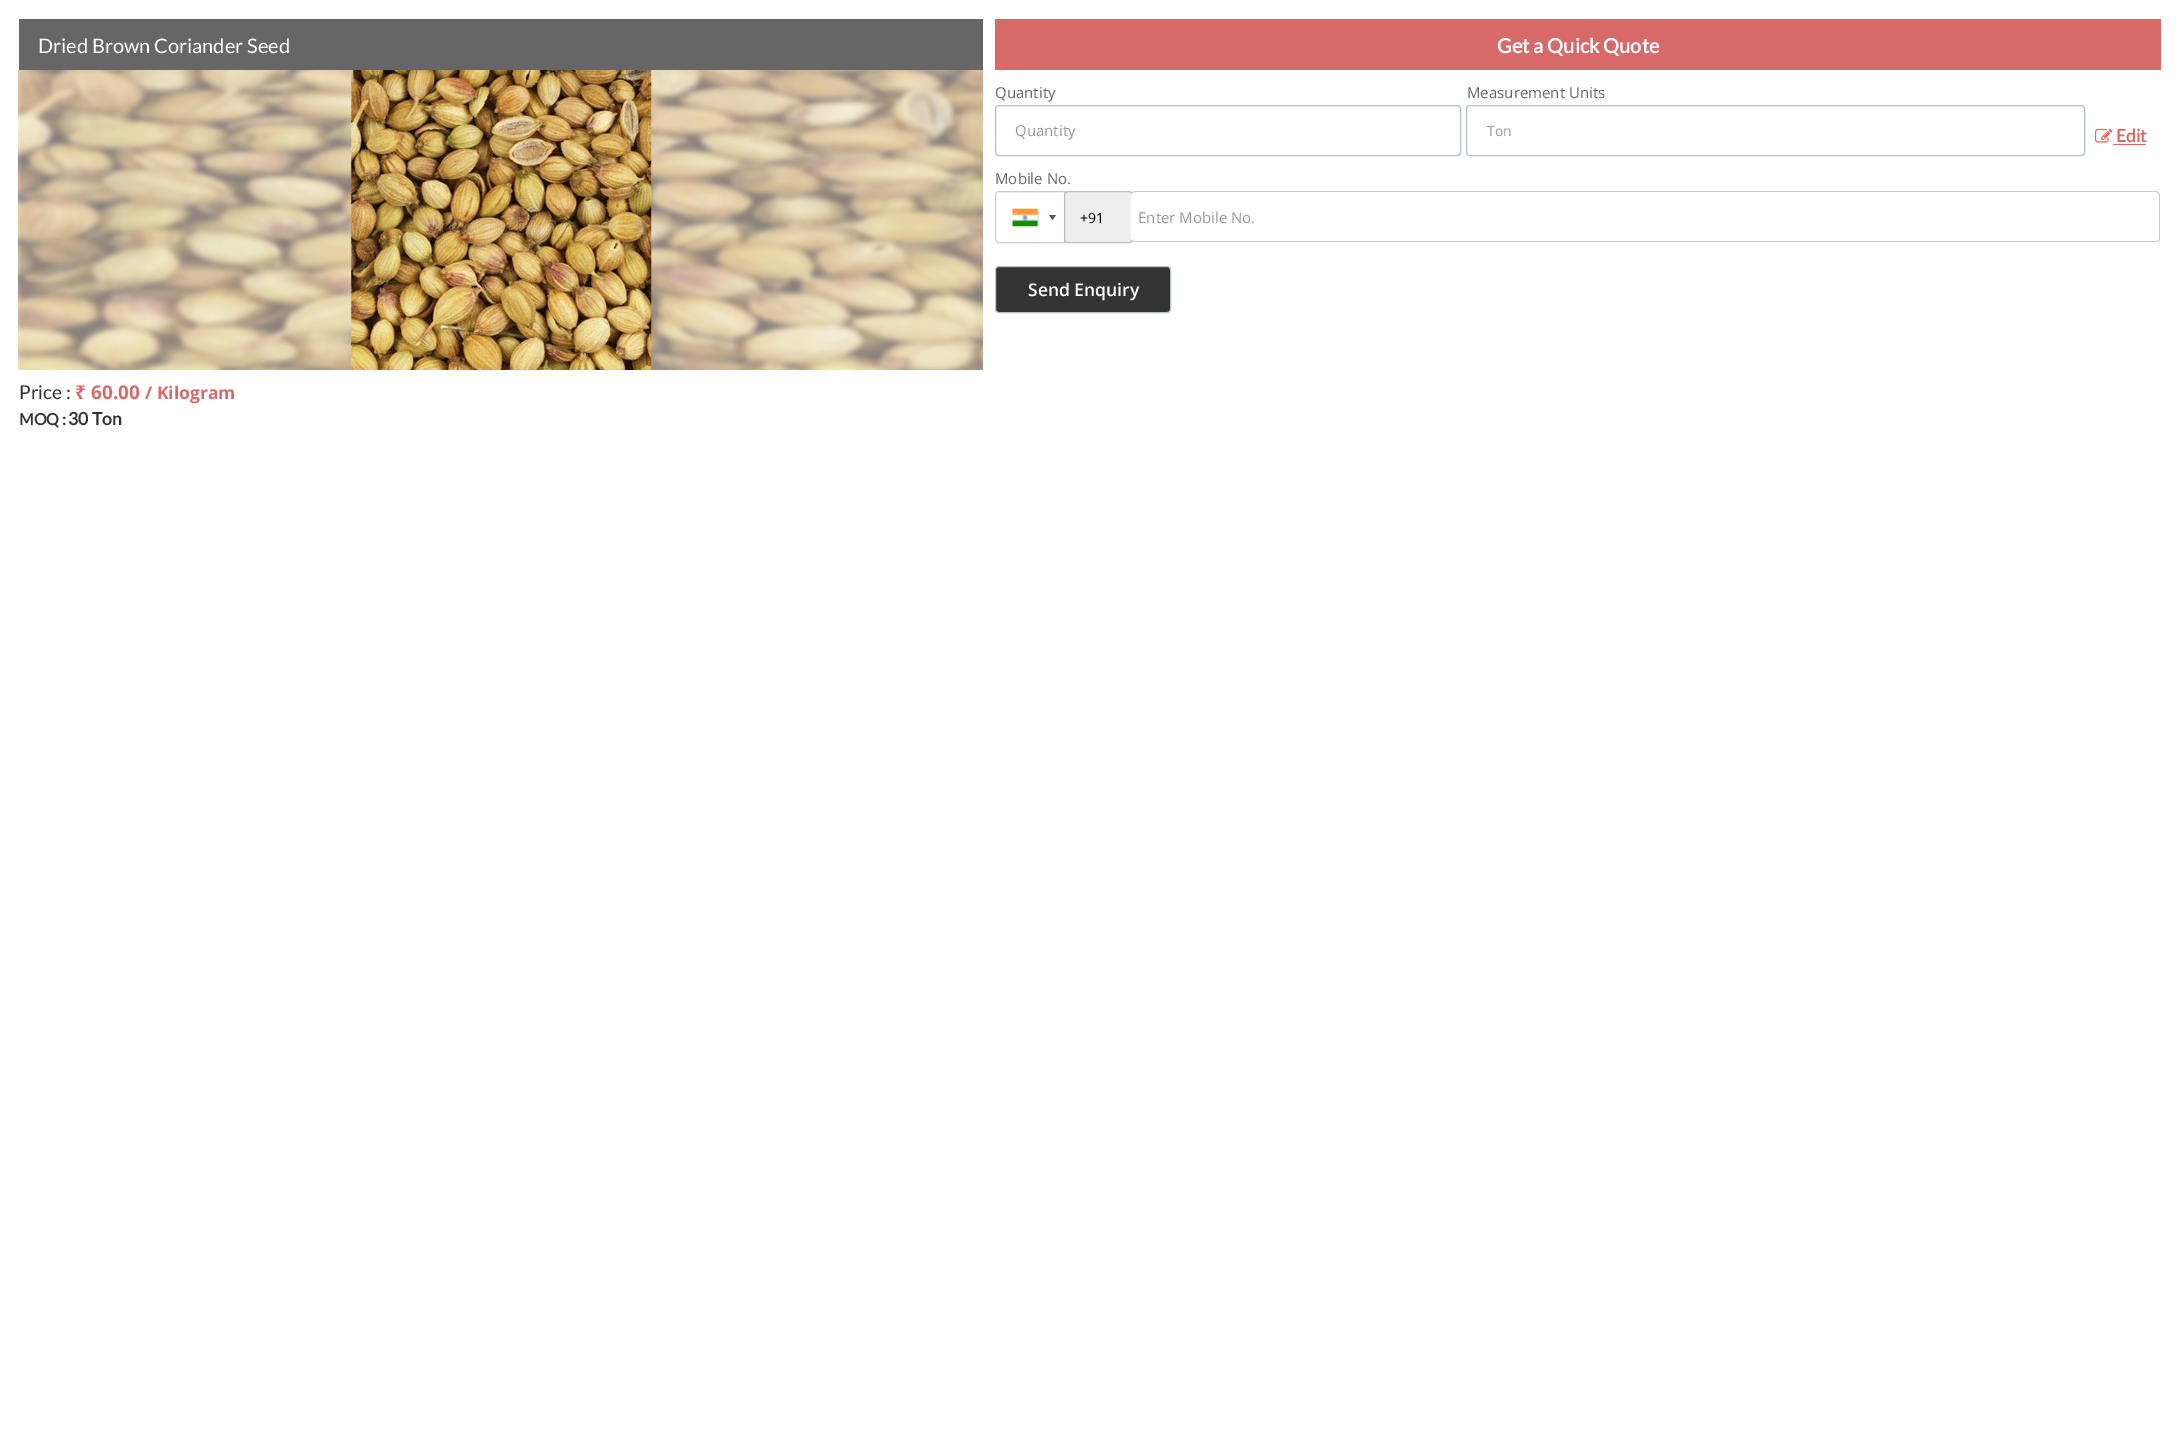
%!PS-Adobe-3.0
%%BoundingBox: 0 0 2180 1438
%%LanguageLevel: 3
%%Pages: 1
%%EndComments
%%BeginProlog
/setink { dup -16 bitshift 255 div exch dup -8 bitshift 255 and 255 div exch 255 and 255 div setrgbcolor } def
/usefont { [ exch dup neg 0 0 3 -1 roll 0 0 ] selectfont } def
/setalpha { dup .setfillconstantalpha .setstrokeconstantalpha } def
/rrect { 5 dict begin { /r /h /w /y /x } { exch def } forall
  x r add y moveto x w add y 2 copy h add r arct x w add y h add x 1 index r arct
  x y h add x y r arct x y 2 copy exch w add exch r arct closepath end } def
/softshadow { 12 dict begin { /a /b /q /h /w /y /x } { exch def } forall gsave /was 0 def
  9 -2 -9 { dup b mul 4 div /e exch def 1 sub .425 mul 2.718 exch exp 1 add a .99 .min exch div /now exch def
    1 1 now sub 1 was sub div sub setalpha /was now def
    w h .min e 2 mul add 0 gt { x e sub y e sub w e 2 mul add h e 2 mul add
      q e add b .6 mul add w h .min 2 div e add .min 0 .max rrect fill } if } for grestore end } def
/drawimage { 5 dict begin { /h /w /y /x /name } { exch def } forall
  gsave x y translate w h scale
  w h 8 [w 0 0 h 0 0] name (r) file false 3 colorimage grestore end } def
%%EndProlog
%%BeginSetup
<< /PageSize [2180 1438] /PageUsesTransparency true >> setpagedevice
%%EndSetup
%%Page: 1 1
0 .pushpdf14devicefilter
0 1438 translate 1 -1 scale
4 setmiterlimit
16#FFFFFF setink
0 0 2180 1438 rectfill
16#F7F7F7 setink
19 70 6 300 rectfill
16#666666 setink
19 19 964 51 rectfill
/Lato-Regular 20 usefont
16#FFFFFF setink
38 53 moveto (Dried Brown Coriander Seed) show
(img1.raw) 18 70 965 300 drawimage
16#D86969 setink
995 19 1166 51 rectfill
16#B2C1CF setink
995.5 105.5 465 50 3.5 rrect stroke
16#333333 setink
995.5 266.5 175 46 3.5 rrect gsave fill grestore
16#B2C1CF setink
stroke
gsave
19 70 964 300 rectclip
16#F7F7F7 setink
19 58 976 325 0 2.5 0.5 softshadow
grestore
(img2.raw) 351 70 301 300 drawimage
/Lato-Regular 19 usefont
16#333333 setink
19 399 moveto (Price :) show
/NotoSans-Bold 19 usefont
16#D86969 setink
75 399 moveto (₹ 60.00) show
/OpenSans-Bold 17.5 usefont
145 399 moveto (/ Kilogram) show
/Lato-Bold 16 usefont
16#333333 setink
19 425 moveto (MOQ :) show
/Lato-Bold 17.5 usefont
68 425 moveto (30 Ton) show
/Lato-Bold 20 usefont
16#FFFFFF setink
1497 53 moveto (Get a Quick Quote) show
/OpenSans-Regular 15 usefont
16#666666 setink
995 98 moveto (Quantity) show
16#999999 setink
1015 136 moveto (Quantity) show
16#666666 setink
1467 98 moveto (Measurement Units) show
16#B2C1CF setink
1466.5 105.5 618 50 3.5 rrect stroke
/OpenSans-Regular 14 usefont
16#999999 setink
1487 136 moveto (Ton) show
(img3.raw) 2095 128 18 15 drawimage
/Lato-Bold 17.5 usefont
16#D86969 setink
2116 142 moveto (Edit) show
2113 144 33 1 rectfill
/OpenSans-Regular 15 usefont
16#666666 setink
995 184 moveto (Mobile No.) show
16#CCCCCC setink
999 191.5 moveto 1064.5 191.5 lineto 1064.5 242.5 lineto 999 242.5 lineto 997 242.5 995.5 241 995.5 239 curveto 995.5 195 lineto 995.5 193 997 191.5 999 191.5 curveto closepath stroke
16#888888 setink
1013 209 25 17 0 0.5 1 softshadow
16#DBDBDB setink
1037 209 1 17 rectfill
(img4.raw) 1012 208 26 19 drawimage
16#555555 setink
1049 215 moveto 1056 215 lineto 1052.5 220 lineto closepath fill
16#EEEEEE setink
1064.5 191.5 68 51 3.5 rrect gsave fill grestore
16#B2C1CF setink
stroke
/OpenSans-Regular 14 usefont
16#000000 setink
1080 223 moveto (+91) show
16#FFFFFF setink
1135 192 moveto 2156 192 lineto 2158 192 2159 194 2159 195 curveto 2159 239 lineto 2159 240 2158 241 2156 241 curveto 1135 241 lineto 1133 241 1131 240 1131 239 curveto 1131 195 lineto 1131 194 1133 192 1135 192 curveto closepath fill
16#CCCCCC setink
1135 191 moveto 2156 191 lineto 2158 191 2160 193 2160 195 curveto 2160 239 lineto 2160 241 2158 242 2156 242 curveto 1135 242 lineto 1133 242 1131 241 1131 239 curveto 1131 195 lineto 1131 193 1133 191 1135 191 curveto closepath 1135 192 moveto 2156 192 lineto 2158 192 2159 194 2159 195 curveto 2159 239 lineto 2159 240 2158 241 2156 241 curveto 1135 241 lineto 1133 241 1131 240 1131 239 curveto 1131 195 lineto 1131 194 1133 192 1135 192 curveto closepath eofill
/OpenSans-Regular 15 usefont
16#999999 setink
1138 223 moveto (Enter Mobile No.) show
/OpenSans-SemiBold 17.5 usefont
16#FFFFFF setink
1028 296 moveto (Send Enquiry) show
.poppdf14devicefilter showpage
%%EOF
